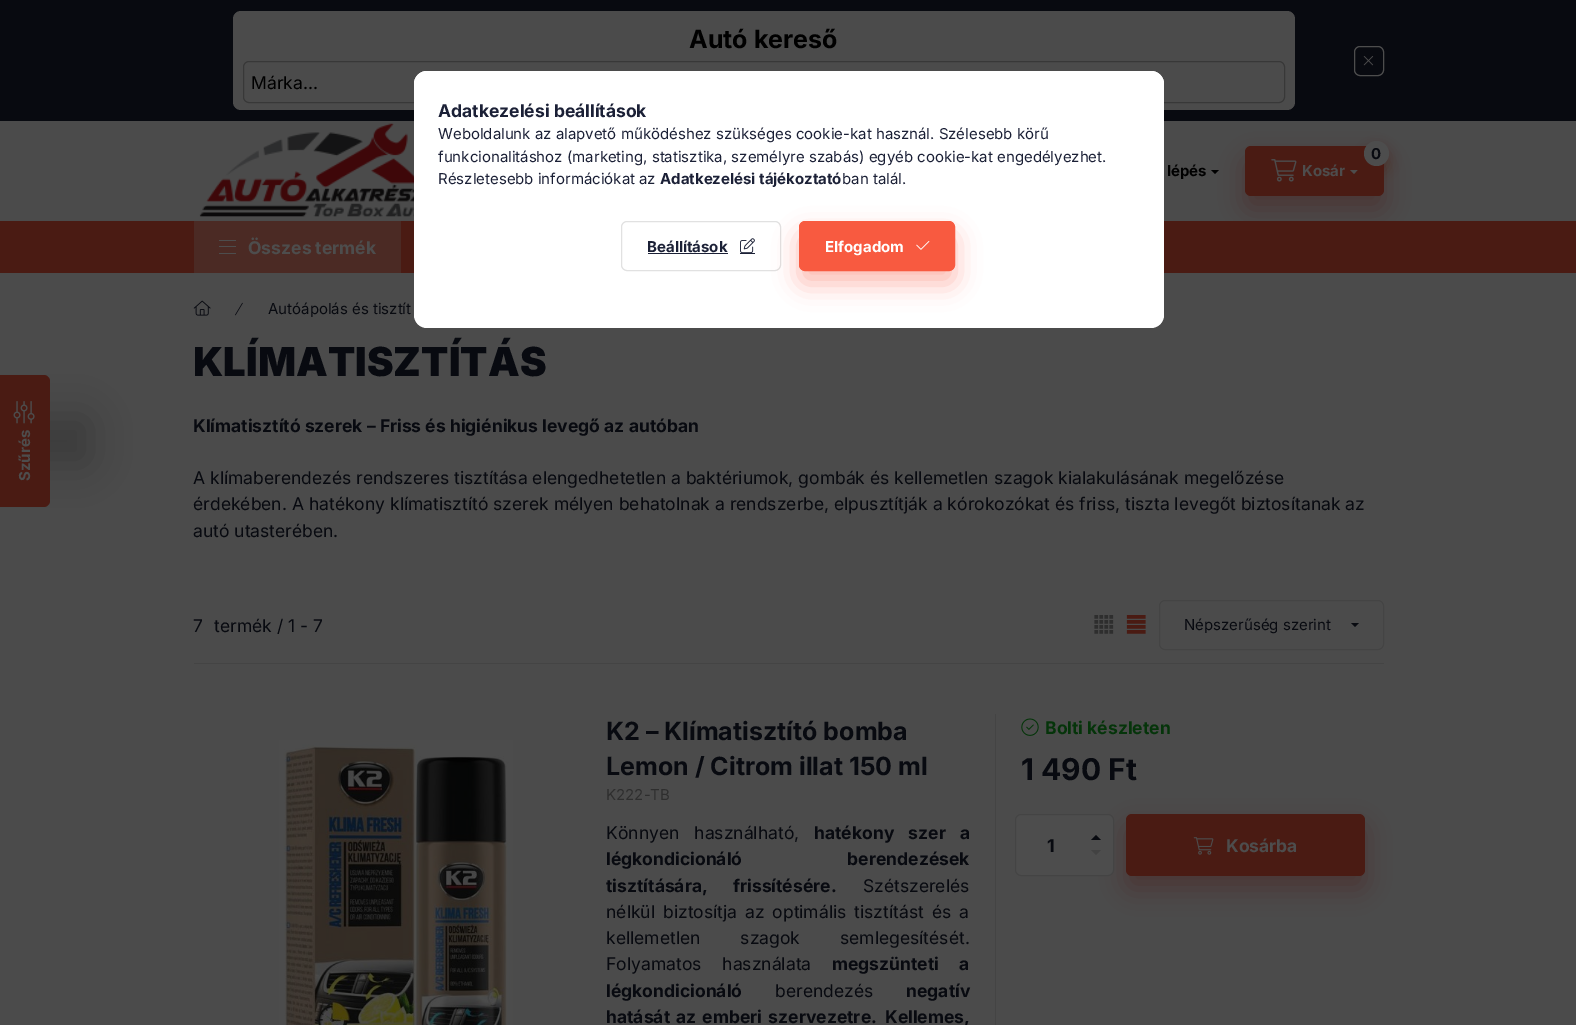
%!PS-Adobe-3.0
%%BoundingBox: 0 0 1576 1025
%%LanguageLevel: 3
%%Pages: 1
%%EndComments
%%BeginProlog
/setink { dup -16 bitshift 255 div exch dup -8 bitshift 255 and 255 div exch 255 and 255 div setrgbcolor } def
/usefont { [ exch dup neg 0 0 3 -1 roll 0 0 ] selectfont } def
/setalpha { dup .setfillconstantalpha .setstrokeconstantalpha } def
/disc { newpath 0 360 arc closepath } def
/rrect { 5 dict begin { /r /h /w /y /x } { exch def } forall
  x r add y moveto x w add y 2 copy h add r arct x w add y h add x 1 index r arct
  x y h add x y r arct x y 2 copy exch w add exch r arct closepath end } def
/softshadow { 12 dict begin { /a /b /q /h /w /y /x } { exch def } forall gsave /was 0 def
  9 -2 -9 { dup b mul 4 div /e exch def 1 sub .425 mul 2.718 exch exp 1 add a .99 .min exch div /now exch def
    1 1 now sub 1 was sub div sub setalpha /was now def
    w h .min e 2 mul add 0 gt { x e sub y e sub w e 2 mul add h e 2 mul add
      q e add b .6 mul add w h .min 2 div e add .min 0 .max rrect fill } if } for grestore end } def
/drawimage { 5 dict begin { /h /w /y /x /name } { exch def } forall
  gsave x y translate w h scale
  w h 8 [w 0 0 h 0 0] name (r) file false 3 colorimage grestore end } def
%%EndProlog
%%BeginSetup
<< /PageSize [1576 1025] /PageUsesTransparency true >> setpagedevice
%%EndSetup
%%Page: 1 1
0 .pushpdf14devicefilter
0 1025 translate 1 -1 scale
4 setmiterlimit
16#4B4B4B setink
0 0 1576 1025 rectfill
16#4A1B13 setink
0 221 1576 52 rectfill
1245 159 139 50 6 12.5 0.4 softshadow
16#080A10 setink
0 0 1576 121 rectfill
16#4B4B4B setink
233 11 1062 99 8 rrect fill
/Inter-Bold 25 usefont
16#000000 setink
689 48 moveto (Autó kereső) show
16#383838 setink
243.5 61.5 1041 41 5.5 rrect stroke
/Inter-Regular 17.5 usefont
16#000000 setink
251 89 moveto (Márka...) show
16#4D4D4D setink
1354.5 46.5 29 29 5.5 rrect stroke
(img1.raw) 1363 56 11 10 drawimage
(img2.raw) 199 123 215 94 drawimage
/Inter-Bold 15 usefont
16#000000 setink
1167 176 moveto (lépés) show
1211 170 moveto 1219 170 lineto 1215 174 lineto closepath fill
16#4A1B13 setink
1245 146 139 50 6 rrect fill
1364 148 25 25 12.5 6 0.4 softshadow
16#4D4D4D setink
1376.5 153.5 12.5 disc fill
16#080A10 setink
1371 159 moveto (0) show
(img3.raw) 1271 159 26 23 drawimage
16#4D4D4D setink
1302 176 moveto (Kosár) show
1350 170 moveto 1357.5 170 lineto 1354 174 lineto closepath fill
[
    [194 221 207 52 16#4B2A24]
    [219 240 17 1 16#4D4D4D]
    [219 246 17 1 16#4D4D4D]
    [219 253 17 1 16#4D4D4D]
] { aload pop setink rectfill } forall
/Inter-Bold 17.5 usefont
248 254 moveto (Összes termék) show
16#000000 setink
-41 416 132 50 6 19 0.2 softshadow
16#4A1B13 setink
0 507 moveto 0 375 lineto 44 375 lineto 47 375 50 378 50 381 curveto 50 501 lineto 50 504 47 507 44 507 curveto closepath fill
(img4.raw) 13 401 22 23 drawimage
/Inter-Bold 15 usefont
16#4D4D4D setink
gsave 30 481 translate -90 rotate 0 0 moveto (Szűrés) show grestore
(img5.raw) 193 300 18 16 drawimage
(img6.raw) 235 302 8 14 drawimage
/Inter-Regular 15 usefont
16#080A10 setink
268 314 moveto (Autóápolás és tisztít) show
/Inter-Black 40 usefont
193 376 moveto (KLÍMATISZTÍTÁS) show
/Inter-Bold 17.5 usefont
193 432 moveto (Klímatisztító szerek – Friss és higiénikus levegő az autóban) show
/Inter-Regular 17.5 usefont
[
    [(A klímaberendezés rendszeres tisztítása elengedhetetlen a baktériumok, gombák és kellemetlen szagok kialakulásának megelőzése) 193 484]
    [(érdekében. A hatékony klímatisztító szerek mélyen behatolnak a rendszerbe, elpusztítják a kórokozókat és friss, tiszta levegőt biztosítanak az) 193 510]
    [(autó utasterében.) 193 537]
] { aload pop moveto show } forall
16#444444 setink
194 663 1190 1 rectfill
16#080A10 setink
193 632 moveto (7) show
214 632 moveto (termék / 1 - 7) show
(img7.raw) 1094 615 20 19 drawimage
(img8.raw) 1126 615 20 19 drawimage
16#444444 setink
1159.5 600.5 224 49 5.5 rrect stroke
/Inter-Regular 15 usefont
16#080A10 setink
1184 630 moveto (Népszerűség szerint) show
1351 623 moveto 1359 623 lineto 1355 627 lineto closepath fill
(img9.raw) 279 740 234 285 drawimage
/Inter-Bold 25 usefont
606 740 moveto (K2 – Klímatisztító bomba) show
606 775 moveto (Lemon / Citrom illat 150 ml) show
/Inter-Regular 15 usefont
16#2E2E2E setink
606 800 moveto (K222-TB) show
/Inter-Regular 17.5 usefont
16#080A10 setink
606 839 moveto 10 0 32 (Könnyen használható,) widthshow
/Inter-Bold 17.5 usefont
814 839 moveto 10 0 32 (hatékony szer a) widthshow
606 865 moveto 101 0 32 (légkondicionáló berendezések) widthshow
606 892 moveto 21 0 32 (tisztítására, frissítésére.) widthshow
/Inter-Regular 17.5 usefont
863 892 moveto (Szétszerelés) show
606 918 moveto 3 0 32 (nélkül biztosítja az optimális tisztítást és a) widthshow
606 944 moveto 35 0 32 (kellemetlen szagok semlegesítését.) widthshow
606 970 moveto 16 0 32 (Folyamatos használata) widthshow
/Inter-Bold 17.5 usefont
832 970 moveto 16 0 32 (megszünteti a) widthshow
606 997 moveto (légkondicionáló) show
/Inter-Regular 17.5 usefont
775 997 moveto (berendezés) show
/Inter-Bold 17.5 usefont
906 997 moveto (negatív) show
606 1023 moveto 2 0 32 (hatását az emberi szervezetre.) widthshow
885 1023 moveto (Kellemes,) show
16#444444 setink
995 714 1 311 rectfill
(img10.raw) 1021 718 18 18 drawimage
16#05340A setink
1045 734 moveto (Bolti készleten) show
/Inter-Bold 30 usefont
16#080A10 setink
1021 780 moveto (1 490 Ft) show
16#4A1B13 setink
1126 826 239 63 6 12.5 0.4 softshadow
16#4D4D4D setink
1015.5 814.5 98 61 5.5 rrect gsave fill grestore
16#444444 setink
stroke
/Inter-Bold 17.5 usefont
16#080A10 setink
1047 852 moveto (1) show
1101 840 moveto 1091 840 lineto 1096 835 lineto closepath fill
16#424242 setink
1091 850 moveto 1101 850 lineto 1096 855 lineto closepath fill
16#4A1B13 setink
1126 814 239 62 6 rrect fill
(img11.raw) 1193 837 21 18 drawimage
16#4D4D4D setink
1226 852 moveto (Kosárba) show
16#FFFFFF setink
414 71 750 257 13 rrect fill
427 71 moveto 1151 71 lineto 1158 71 1164 77 1164 84 curveto 1164 303 lineto 414 303 lineto 414 84 lineto 414 77 420 71 427 71 curveto closepath fill
16#1B2036 setink
438 117 moveto (Adatkezelési beállítások) show
/Inter-Regular 15 usefont
[
    [(Weboldalunk az alapvető működéshez szükséges cookie-kat használ. Szélesebb körű) 438 139]
    [(funkcionalitáshoz \(marketing, statisztika, személyre szabás\) egyéb cookie-kat engedélyezhet.) 438 162]
    [(Részletesebb információkat az) 438 184]
] { aload pop moveto show } forall
/Inter-Bold 15 usefont
660 184 moveto (Adatkezelési tájékoztató) show
/Inter-Regular 15 usefont
842 184 moveto (ban talál.) show
16#E1E1E1 setink
621.5 221.5 159 49 5.5 rrect stroke
/Inter-Bold 15 usefont
16#1B2036 setink
647 252 moveto (Beállítások) show
648 253 80 1 rectfill
(img12.raw) 740 238 15 15 drawimage
740 253 15 1 rectfill
16#F85A40 setink
799 234 156 50 6 12.5 0.4 softshadow
799.5 221.5 155 49 5.5 rrect gsave fill grestore
stroke
16#FFFFFF setink
825 252 moveto (Elfogadom) show
(img13.raw) 916 241 14 9 drawimage
.poppdf14devicefilter showpage
%%EOF
